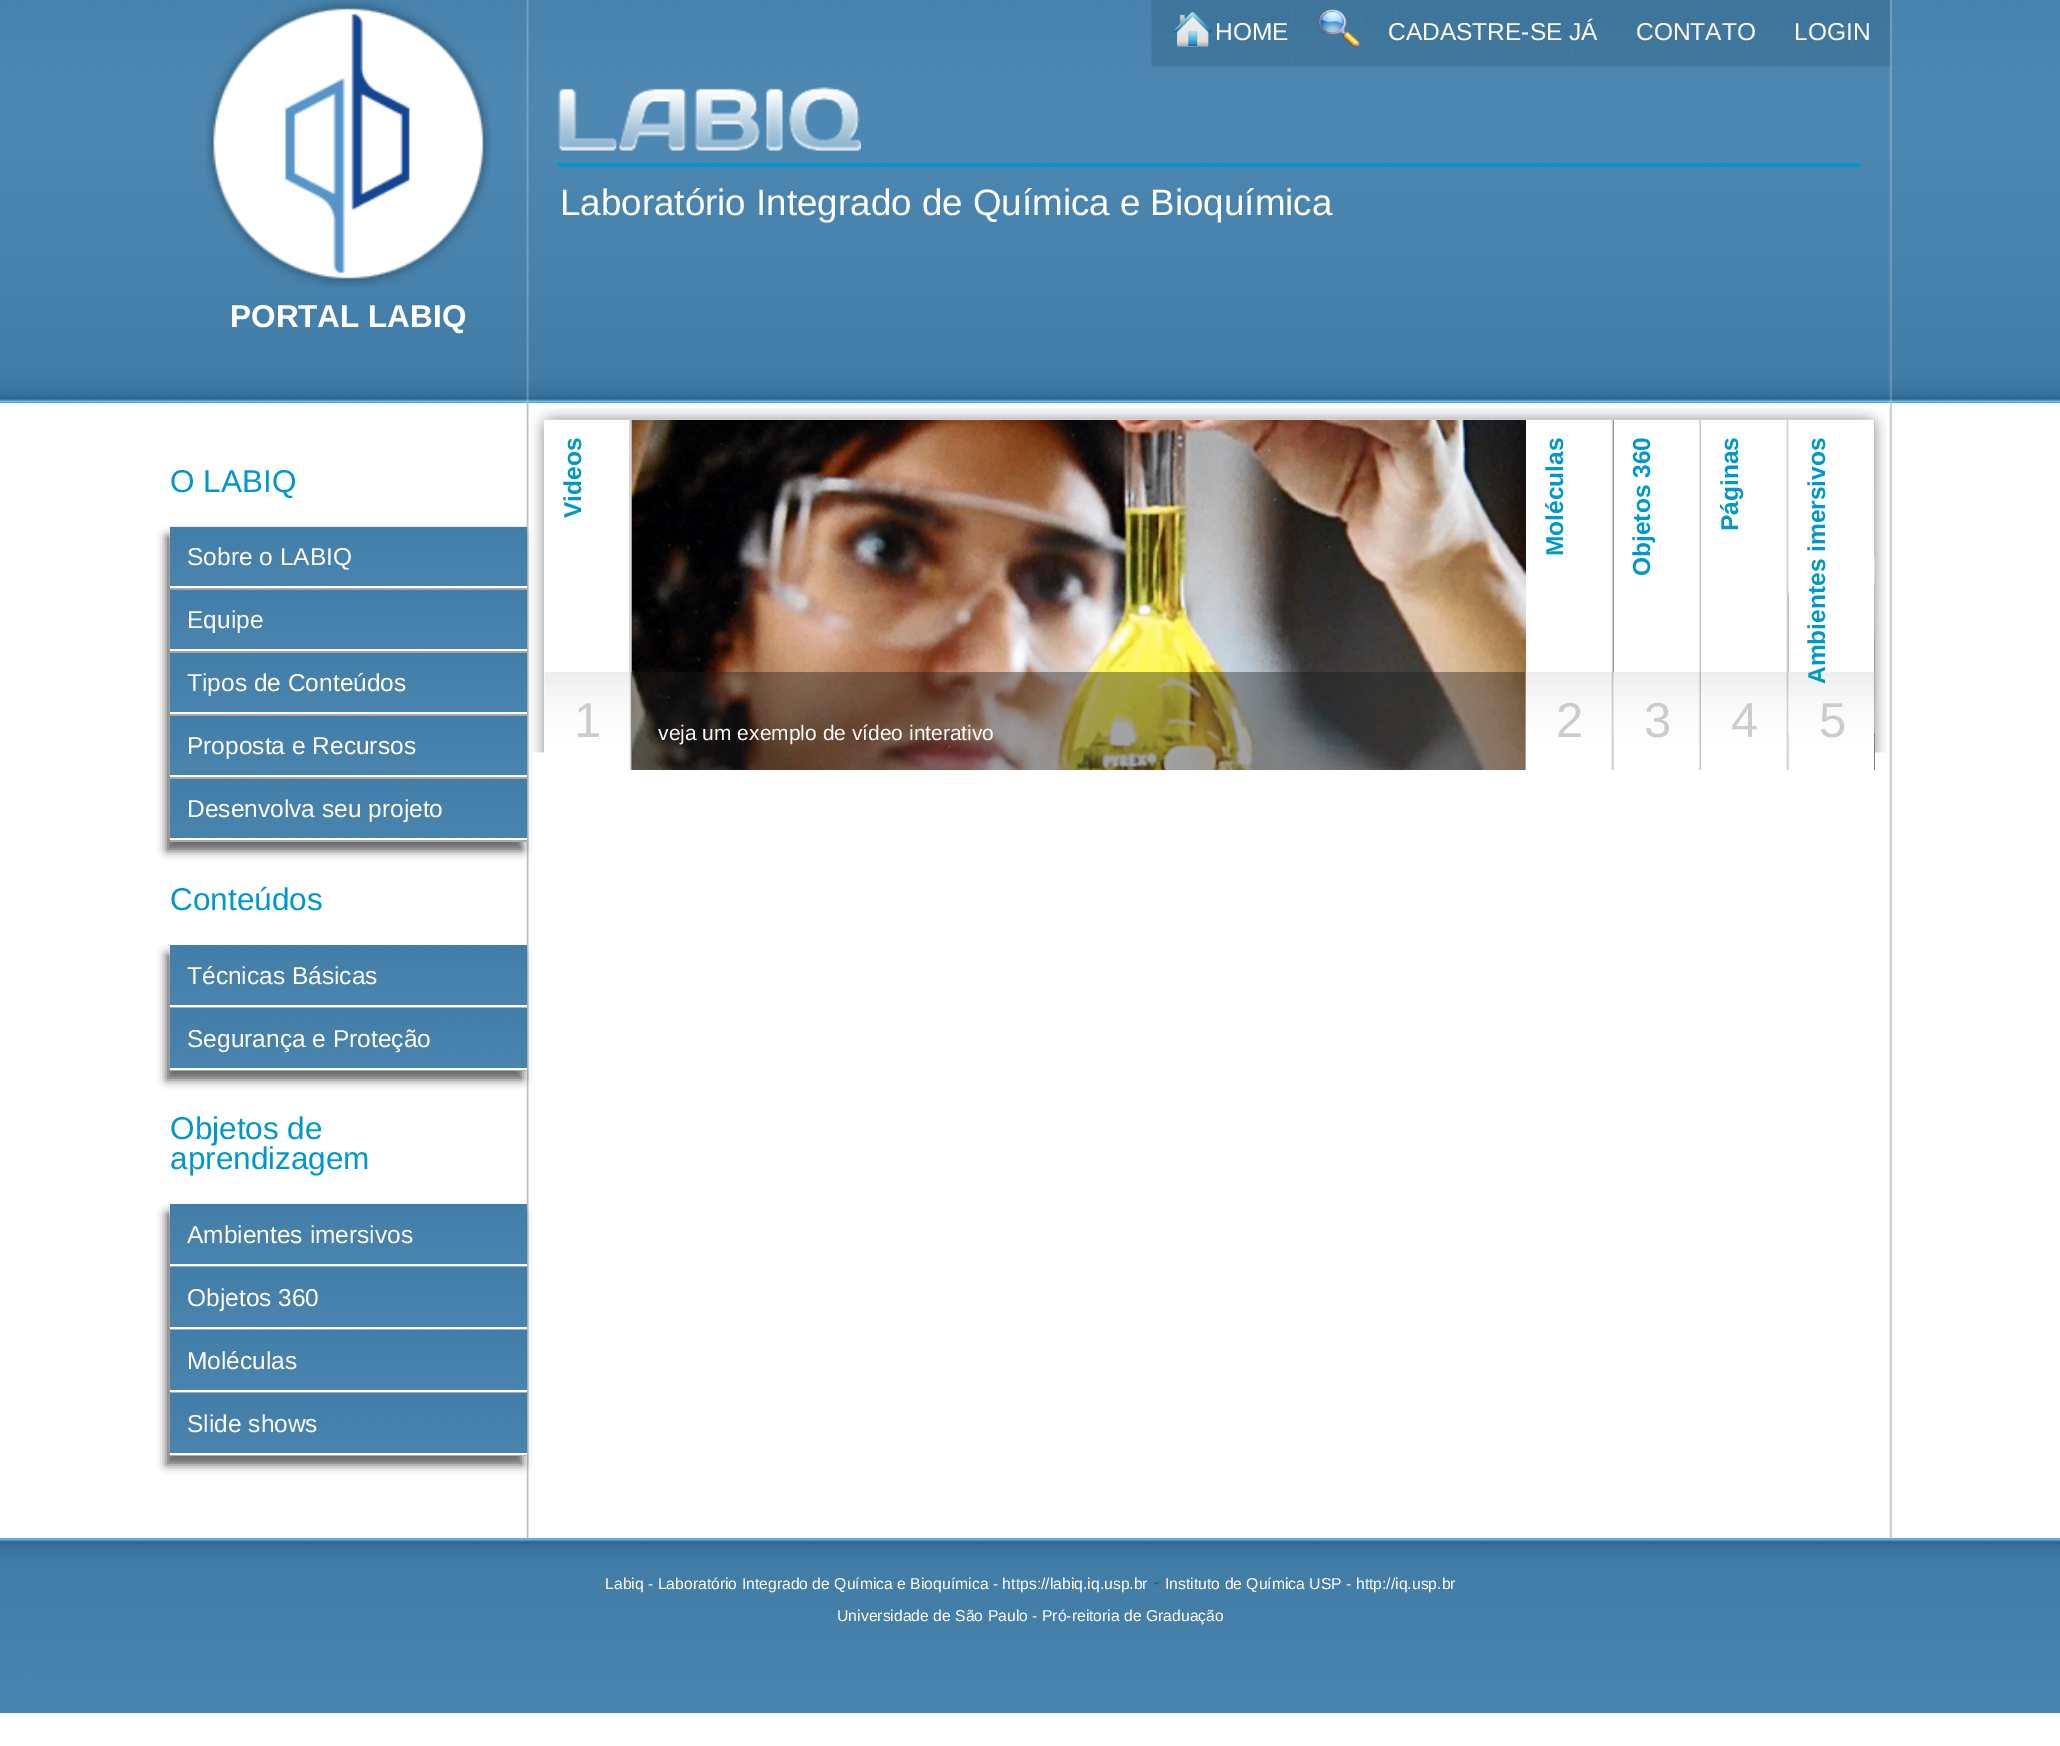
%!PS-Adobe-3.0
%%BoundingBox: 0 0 2060 1746
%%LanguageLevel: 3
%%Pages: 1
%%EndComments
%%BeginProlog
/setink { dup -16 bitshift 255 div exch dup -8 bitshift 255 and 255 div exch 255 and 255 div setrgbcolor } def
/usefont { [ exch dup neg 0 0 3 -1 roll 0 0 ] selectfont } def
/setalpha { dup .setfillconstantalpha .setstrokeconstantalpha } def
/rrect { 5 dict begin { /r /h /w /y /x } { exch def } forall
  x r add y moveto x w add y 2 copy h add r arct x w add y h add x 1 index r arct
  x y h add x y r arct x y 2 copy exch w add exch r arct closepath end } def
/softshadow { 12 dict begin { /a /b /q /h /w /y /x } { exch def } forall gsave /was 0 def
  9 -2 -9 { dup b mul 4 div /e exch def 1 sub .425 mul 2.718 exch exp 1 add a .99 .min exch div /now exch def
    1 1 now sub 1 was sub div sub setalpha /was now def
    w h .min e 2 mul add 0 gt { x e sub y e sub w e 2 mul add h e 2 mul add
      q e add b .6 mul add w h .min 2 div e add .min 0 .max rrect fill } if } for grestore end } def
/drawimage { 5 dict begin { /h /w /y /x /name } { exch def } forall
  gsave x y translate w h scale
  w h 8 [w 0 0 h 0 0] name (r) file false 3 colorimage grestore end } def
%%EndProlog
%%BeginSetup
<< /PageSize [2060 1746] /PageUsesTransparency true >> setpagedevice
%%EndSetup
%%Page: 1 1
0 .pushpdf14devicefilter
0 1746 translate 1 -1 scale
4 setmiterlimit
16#FFFFFF setink
0 0 2060 1746 rectfill
16#1188DD setink
0 0 2060 403 rectfill
(img1.raw) 0 0 2060 403 drawimage
(img2.raw) 526 0 1366 403 drawimage
(img3.raw) 1151 0 739 67 drawimage
(img4.raw) 1173 11 39 36 drawimage
/LiberationSans-Regular 24.5 usefont
16#FFFFFF setink
1215 40 moveto (HOME) show
(img5.raw) 1318 9 42 39 drawimage
[
    [(CADASTRE-SE JÁ) 1388 40]
    [(CONTATO) 1636 40]
    [(LOGIN) 1794 40]
] { aload pop moveto show } forall
(img6.raw) 558 87 303 65 drawimage
16#0098CA setink
558 163 1302 4 rectfill
/LiberationSans-Regular 36.75 usefont
16#FFFFFF setink
560 215 moveto (Laboratório Integrado de Química e Bioquímica) show
(img7.raw) 205 0 287 287 drawimage
/LiberationSans-Bold 31.5 usefont
230 327 moveto (PORTAL LABIQ) show
16#1188DD setink
0 1538 2060 175 rectfill
(img33.raw) 0 1538 2060 176 drawimage
(img8.raw) 526 402 1366 1137 drawimage
/LiberationSans-Regular 31.5 usefont
16#0098CA setink
170 492 moveto (O LABIQ) show
16#000000 setink
166 536 357 315 0 4.5 0.6 softshadow
16#AAAAAA setink
170 588 357 2 rectfill
16#1188DD setink
170 527 357 59 rectfill
(img9.raw) 169 526 358 62 drawimage
16#FFFFFF setink
170 586 357 2 rectfill
/LiberationSans-Regular 24.5 usefont
187 565 moveto (Sobre o LABIQ) show
16#AAAAAA setink
170 651 357 2 rectfill
16#1188DD setink
170 590 357 59 rectfill
(img10.raw) 169 589 358 62 drawimage
16#FFFFFF setink
170 649 357 2 rectfill
187 628 moveto (Equipe) show
16#AAAAAA setink
170 714 357 2 rectfill
16#1188DD setink
170 653 357 59 rectfill
(img11.raw) 169 652 358 62 drawimage
16#FFFFFF setink
170 712 357 2 rectfill
187 691 moveto (Tipos de Conteúdos) show
16#AAAAAA setink
170 777 357 2 rectfill
16#1188DD setink
170 716 357 59 rectfill
(img12.raw) 169 715 358 62 drawimage
16#FFFFFF setink
170 775 357 2 rectfill
187 754 moveto (Proposta e Recursos) show
16#AAAAAA setink
170 840 357 2 rectfill
16#1188DD setink
170 779 357 59 rectfill
(img13.raw) 169 778 358 62 drawimage
16#FFFFFF setink
170 838 357 2 rectfill
187 817 moveto (Desenvolva seu projeto) show
/LiberationSans-Regular 31.5 usefont
16#0098CA setink
170 910 moveto (Conteúdos) show
16#000000 setink
166 954 357 126 0 4.5 0.6 softshadow
16#AAAAAA setink
170 1007 357 1 rectfill
16#1188DD setink
170 945 357 60 rectfill
(img14.raw) 169 945 358 62 drawimage
16#FFFFFF setink
170 1005 357 2 rectfill
/LiberationSans-Regular 24.5 usefont
187 984 moveto (Técnicas Básicas) show
16#AAAAAA setink
170 1070 357 1 rectfill
16#1188DD setink
170 1008 357 60 rectfill
(img15.raw) 169 1008 358 62 drawimage
16#FFFFFF setink
170 1068 357 2 rectfill
187 1047 moveto (Segurança e Proteção) show
/LiberationSans-Regular 31.5 usefont
16#0098CA setink
170 1139 moveto (Objetos de) show
170 1169 moveto (aprendizagem) show
16#000000 setink
166 1213 357 252 0 4.5 0.6 softshadow
16#AAAAAA setink
170 1266 357 1 rectfill
16#1188DD setink
170 1204 357 60 rectfill
(img16.raw) 169 1204 358 62 drawimage
16#FFFFFF setink
170 1264 357 2 rectfill
/LiberationSans-Regular 24.5 usefont
187 1243 moveto (Ambientes imersivos) show
16#AAAAAA setink
170 1329 357 1 rectfill
16#1188DD setink
170 1267 357 60 rectfill
(img17.raw) 169 1267 358 62 drawimage
16#FFFFFF setink
170 1327 357 2 rectfill
187 1306 moveto (Objetos 360) show
16#AAAAAA setink
170 1392 357 1 rectfill
16#1188DD setink
170 1330 357 60 rectfill
(img18.raw) 169 1330 358 62 drawimage
16#FFFFFF setink
170 1390 357 2 rectfill
187 1369 moveto (Moléculas) show
16#AAAAAA setink
170 1455 357 1 rectfill
16#1188DD setink
170 1393 357 60 rectfill
(img19.raw) 169 1393 358 62 drawimage
16#FFFFFF setink
170 1453 357 2 rectfill
187 1432 moveto (Slide shows) show
(img20.raw) 532 408 1355 345 drawimage
544 420 85 333 rectfill
16#D7D7D7 setink
629 420 3 350 rectfill
/LiberationSans-Bold 24.5 usefont
16#0098CA setink
gsave 581 518 translate -90 rotate 0 0 moveto (Videos) show grestore
(img21.raw) 631 420 983 350 drawimage
(img22.raw) 544 672 88 98 drawimage
/LiberationSans-Regular 49 usefont
16#CCCCCC setink
574 737 moveto (1) show
0.4 setalpha
16#191919 setink
631 672 894 98 rectfill
/LiberationSans-Regular 21 usefont
1 setalpha
16#FFFFFF setink
658 740 moveto (veja um exemplo de vídeo interativo) show
(img23.raw) 1526 420 88 350 drawimage
/LiberationSans-Bold 24.5 usefont
16#0098CA setink
gsave 1563 556 translate -90 rotate 0 0 moveto (Moléculas) show grestore
(img24.raw) 1613 420 262 350 drawimage
(img25.raw) 1526 672 88 98 drawimage
/LiberationSans-Regular 49 usefont
16#CCCCCC setink
1556 737 moveto (2) show
0.4 setalpha
16#191919 setink
1613 733 262 37 rectfill
1 setalpha
(img26.raw) 1613 420 88 350 drawimage
/LiberationSans-Bold 24.5 usefont
16#0098CA setink
gsave 1650 576 translate -90 rotate 0 0 moveto (Objetos 360) show grestore
(img27.raw) 1788 420 87 350 drawimage
(img28.raw) 1613 672 88 98 drawimage
/LiberationSans-Regular 49 usefont
16#CCCCCC setink
1644 737 moveto (3) show
0.4 setalpha
16#191919 setink
1788 733 87 37 rectfill
1 setalpha
(img29.raw) 1701 420 88 350 drawimage
/LiberationSans-Bold 24.5 usefont
16#0098CA setink
gsave 1738 531 translate -90 rotate 0 0 moveto (Páginas) show grestore
(img30.raw) 1701 672 88 98 drawimage
/LiberationSans-Regular 49 usefont
16#CCCCCC setink
1731 737 moveto (4) show
0.4 setalpha
16#191919 setink
1788 733 87 37 rectfill
1 setalpha
(img31.raw) 1788 420 87 350 drawimage
(img32.raw) 1788 672 87 98 drawimage
/LiberationSans-Bold 24.5 usefont
16#0098CA setink
gsave 1825 684 translate -90 rotate 0 0 moveto (Ambientes imersivos) show grestore
/LiberationSans-Regular 49 usefont
16#CCCCCC setink
1819 737 moveto (5) show
/LiberationSans-Regular 15.75 usefont
16#FFFFFF setink
605 1589 moveto (Labiq - Laboratório Integrado de Química e Bioquímica - https://labiq.iq.usp.br) show
/LiberationSans-Regular 21 usefont
16#3C5F6B setink
1153 1589 moveto (-) show
/LiberationSans-Regular 15.75 usefont
16#FFFFFF setink
1165 1589 moveto (Instituto de Química USP - http://iq.usp.br) show
837 1621 moveto (Universidade de São Paulo - Pró-reitoria de Graduação) show
.poppdf14devicefilter showpage
%%EOF
